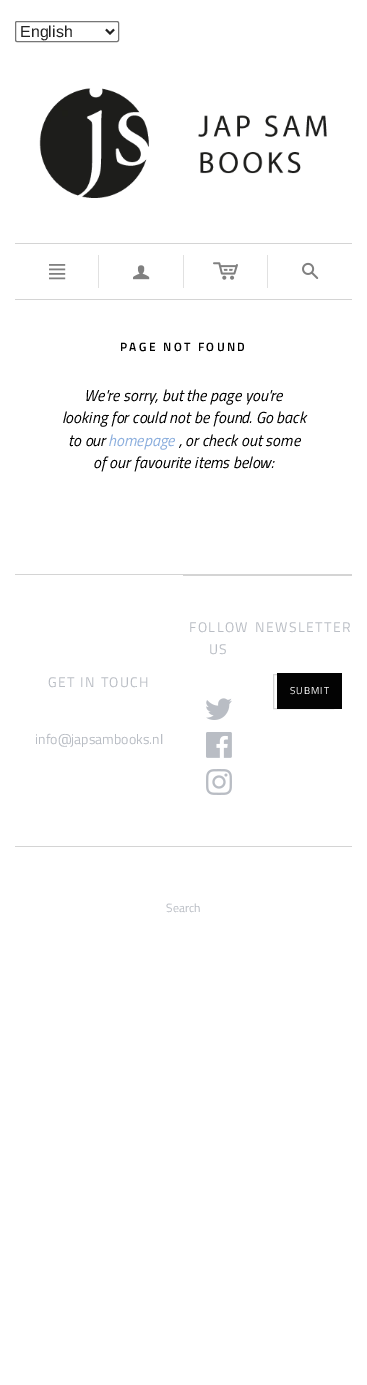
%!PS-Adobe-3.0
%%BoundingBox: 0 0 367 1385
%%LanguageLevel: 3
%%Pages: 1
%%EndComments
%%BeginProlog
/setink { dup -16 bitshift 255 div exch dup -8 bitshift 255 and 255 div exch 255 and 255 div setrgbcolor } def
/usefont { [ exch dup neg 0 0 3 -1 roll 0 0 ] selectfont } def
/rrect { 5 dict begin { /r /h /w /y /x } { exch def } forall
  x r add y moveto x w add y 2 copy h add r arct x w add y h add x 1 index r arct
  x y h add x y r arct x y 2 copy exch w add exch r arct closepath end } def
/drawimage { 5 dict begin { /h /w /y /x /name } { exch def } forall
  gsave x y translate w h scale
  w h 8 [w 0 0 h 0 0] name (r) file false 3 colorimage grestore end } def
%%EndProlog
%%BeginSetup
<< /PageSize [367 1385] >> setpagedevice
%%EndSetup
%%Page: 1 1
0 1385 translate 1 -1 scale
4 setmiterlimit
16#FFFFFF setink
0 0 367 1385 rectfill
16#767676 setink
15.5 21.5 103 20 1.5 rrect stroke
16#222222 setink
2 setlinewidth
106 29.5 moveto 110 33.5 lineto 114 29.5 lineto stroke
/LiberationSans-Regular 16 usefont
20 37 moveto (English) show
(img1.raw) 39 88 288 110 drawimage
16#D4D4D4 setink
15 243 337 1 rectfill
15 299 337 1 rectfill
(img2.raw) 49 264 17 16 drawimage
16#E1E1E1 setink
98 255 1 33 rectfill
(img3.raw) 133 265 17 15 drawimage
183 255 1 33 rectfill
(img4.raw) 213 262 25 18 drawimage
267 255 1 33 rectfill
(img5.raw) 302 262 17 17 drawimage
/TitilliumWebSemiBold-SemiBold 12 usefont
16#000000 setink
120 351 moveto 2.4 0 (PAGE NOT FOUND) ashow
/TitilliumWeb-Italic 16 usefont
[
    [(We're sorry, but the page you're) 84 401]
    [(looking for could not be found. Go back) 62 423]
    [(to our) 68 446]
] { aload pop moveto show } forall
16#8CAFDE setink
108 446 moveto (homepage) show
16#000000 setink
179 446 moveto (, or check out some) show
93 468 moveto (of our favourite items below:) show
[
    [15 574 337 1 16#D4D4D4]
    [15 846 337 1 16#D4D4D4]
    [183 575 169 1 16#D4D4D4]
] { aload pop setink rectfill } forall
/TitilliumWeb-Regular 14 usefont
16#B9BDC4 setink
189 632 moveto 1.4 0 (FOLLOW) ashow
209 654 moveto 1.4 0 (US) ashow
(img6.raw) 206 698 26 22 drawimage
(img7.raw) 206 732 26 26 drawimage
(img8.raw) 206 769 26 26 drawimage
255 632 moveto 1.4 0 (NEWSLETTER) ashow
16#D4D4D4 setink
1 setlinewidth
273.5 674.5 60 34 rectstroke
16#030303 setink
277 673 65 36 rectfill
/TitilliumWeb-Regular 10 usefont
16#FFFFFF setink
290 694 moveto 1 0 (SUBMIT) ashow
/TitilliumWeb-Regular 14 usefont
16#B9BDC4 setink
48 687 moveto 1.4 0 (GET IN TOUCH) ashow
35 744 moveto (info@japsambooks.nl) show
/TitilliumWeb-Regular 12 usefont
166 912 moveto (Search) show
showpage
%%EOF
